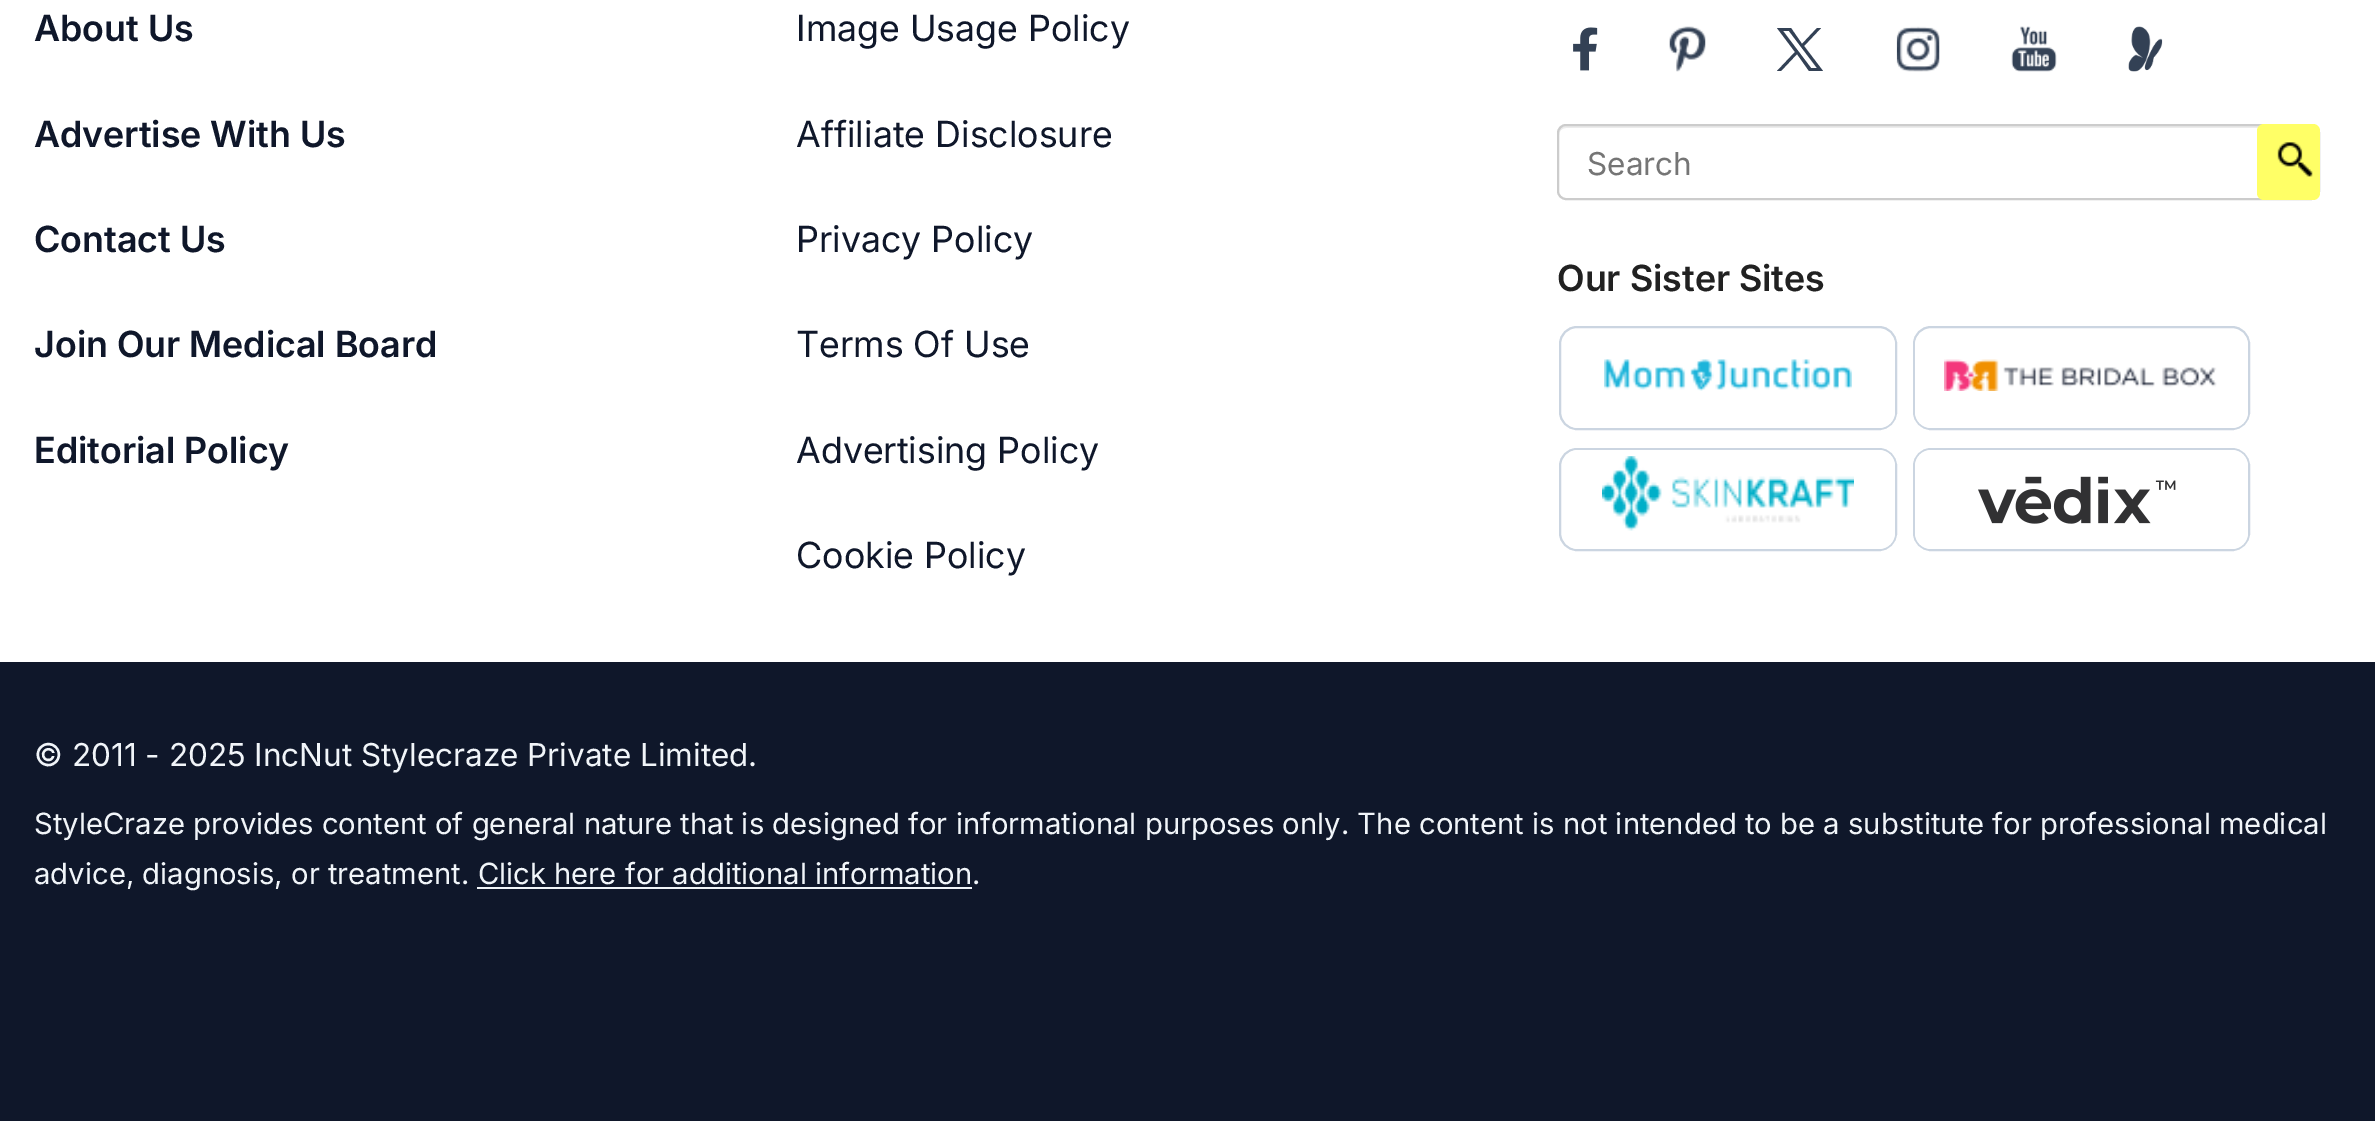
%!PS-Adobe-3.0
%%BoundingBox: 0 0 2375 1121
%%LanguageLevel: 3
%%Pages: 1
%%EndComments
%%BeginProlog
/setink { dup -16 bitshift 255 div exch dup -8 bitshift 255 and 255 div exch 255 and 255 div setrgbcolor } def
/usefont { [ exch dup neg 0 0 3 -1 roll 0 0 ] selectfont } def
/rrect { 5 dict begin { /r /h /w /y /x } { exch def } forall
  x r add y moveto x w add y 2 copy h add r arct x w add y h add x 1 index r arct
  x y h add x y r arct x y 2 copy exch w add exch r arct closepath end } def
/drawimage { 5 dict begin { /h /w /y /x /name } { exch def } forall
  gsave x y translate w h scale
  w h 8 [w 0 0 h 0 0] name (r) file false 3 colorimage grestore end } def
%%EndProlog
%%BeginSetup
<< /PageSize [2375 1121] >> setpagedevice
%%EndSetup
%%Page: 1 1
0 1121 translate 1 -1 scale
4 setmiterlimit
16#FFFFFF setink
0 0 2375 1121 rectfill
/Inter-SemiBold 36 usefont
16#0F172A setink
[
    [(About Us) 34 41]
    [(Advertise With Us) 34 147]
    [(Contact Us) 34 252]
    [(Join Our Medical Board) 34 357]
    [(Editorial Policy) 34 463]
] { aload pop moveto show } forall
/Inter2-Regular 36 usefont
[
    [(Image Usage Policy) 796 41]
    [(Affiliate Disclosure) 796 147]
    [(Privacy Policy) 796 252]
    [(Terms Of Use) 796 357]
    [(Advertising Policy) 796 463]
    [(Cookie Policy) 796 568]
] { aload pop moveto show } forall
(img1.raw) 1573 27 25 44 drawimage
(img2.raw) 1669 26 37 46 drawimage
16#334155 setink
1777 28 moveto 1795 52 lineto 1777 71 lineto 1781 71 lineto 1797 54 lineto 1809 71 lineto 1823 71 lineto 1804 46 lineto 1821 28 lineto 1817 28 lineto 1802 44 lineto 1791 28 lineto closepath 1783 31 moveto 1789 31 lineto 1817 68 lineto 1811 68 lineto closepath fill
(img3.raw) 1896 26 44 46 drawimage
(img4.raw) 2011 26 46 46 drawimage
(img5.raw) 2128 26 35 46 drawimage
16#ECECEC setink
1566 128 moveto 2311 128 lineto 2314 128 2318 131 2318 135 curveto 2318 133 lineto 2318 129 2315 126 2311 126 curveto 1566 126 lineto 1562 126 1559 129 1559 133 curveto 1559 135 lineto 1559 131 1562 128 1566 128 curveto closepath fill
16#CCCCCC setink
2 setlinewidth
1558 125 761 74 8 rrect stroke
/Inter-Regular 31.5 usefont
16#757575 setink
1587 175 moveto (Search) show
16#FFFF66 setink
2257 124 63 76 7 rrect fill
(img6.raw) 2277 142 36 35 drawimage
/Inter-SemiBold 36 usefont
16#212121 setink
1557 291 moveto (Our Sister Sites) show
16#CBD5E1 setink
1560 327 336 102 17 rrect stroke
16#FFFFFF setink
1562 329 333 99 16 rrect fill
(img7.raw) 1604 359 248 32 drawimage
16#CBD5E1 setink
1914 327 335 102 17 rrect stroke
16#FFFFFF setink
1915 329 333 99 16 rrect fill
(img8.raw) 1944 359 273 32 drawimage
16#CBD5E1 setink
1560 449 336 101 17 rrect stroke
16#FFFFFF setink
1562 450 333 99 16 rrect fill
(img9.raw) 1602 456 252 75 drawimage
16#CBD5E1 setink
1914 449 335 101 17 rrect stroke
16#FFFFFF setink
1915 450 333 99 16 rrect fill
(img10.raw) 1978 476 198 48 drawimage
16#0F172A setink
0 662 2375 459 rectfill
/Inter-Regular 31.5 usefont
16#F1F5F9 setink
34 766 moveto (© 2011 - 2025 IncNut Stylecraze Private Limited.) show
/Inter-Regular 29.25 usefont
34 834 moveto (StyleCraze provides content of general nature that is designed for informational purposes only. The content is not intended to be a substitute for professional medical) show
34 884 moveto (advice, diagnosis, or treatment. Click here for additional information.) show
477 887 495 2 rectfill
showpage
%%EOF
